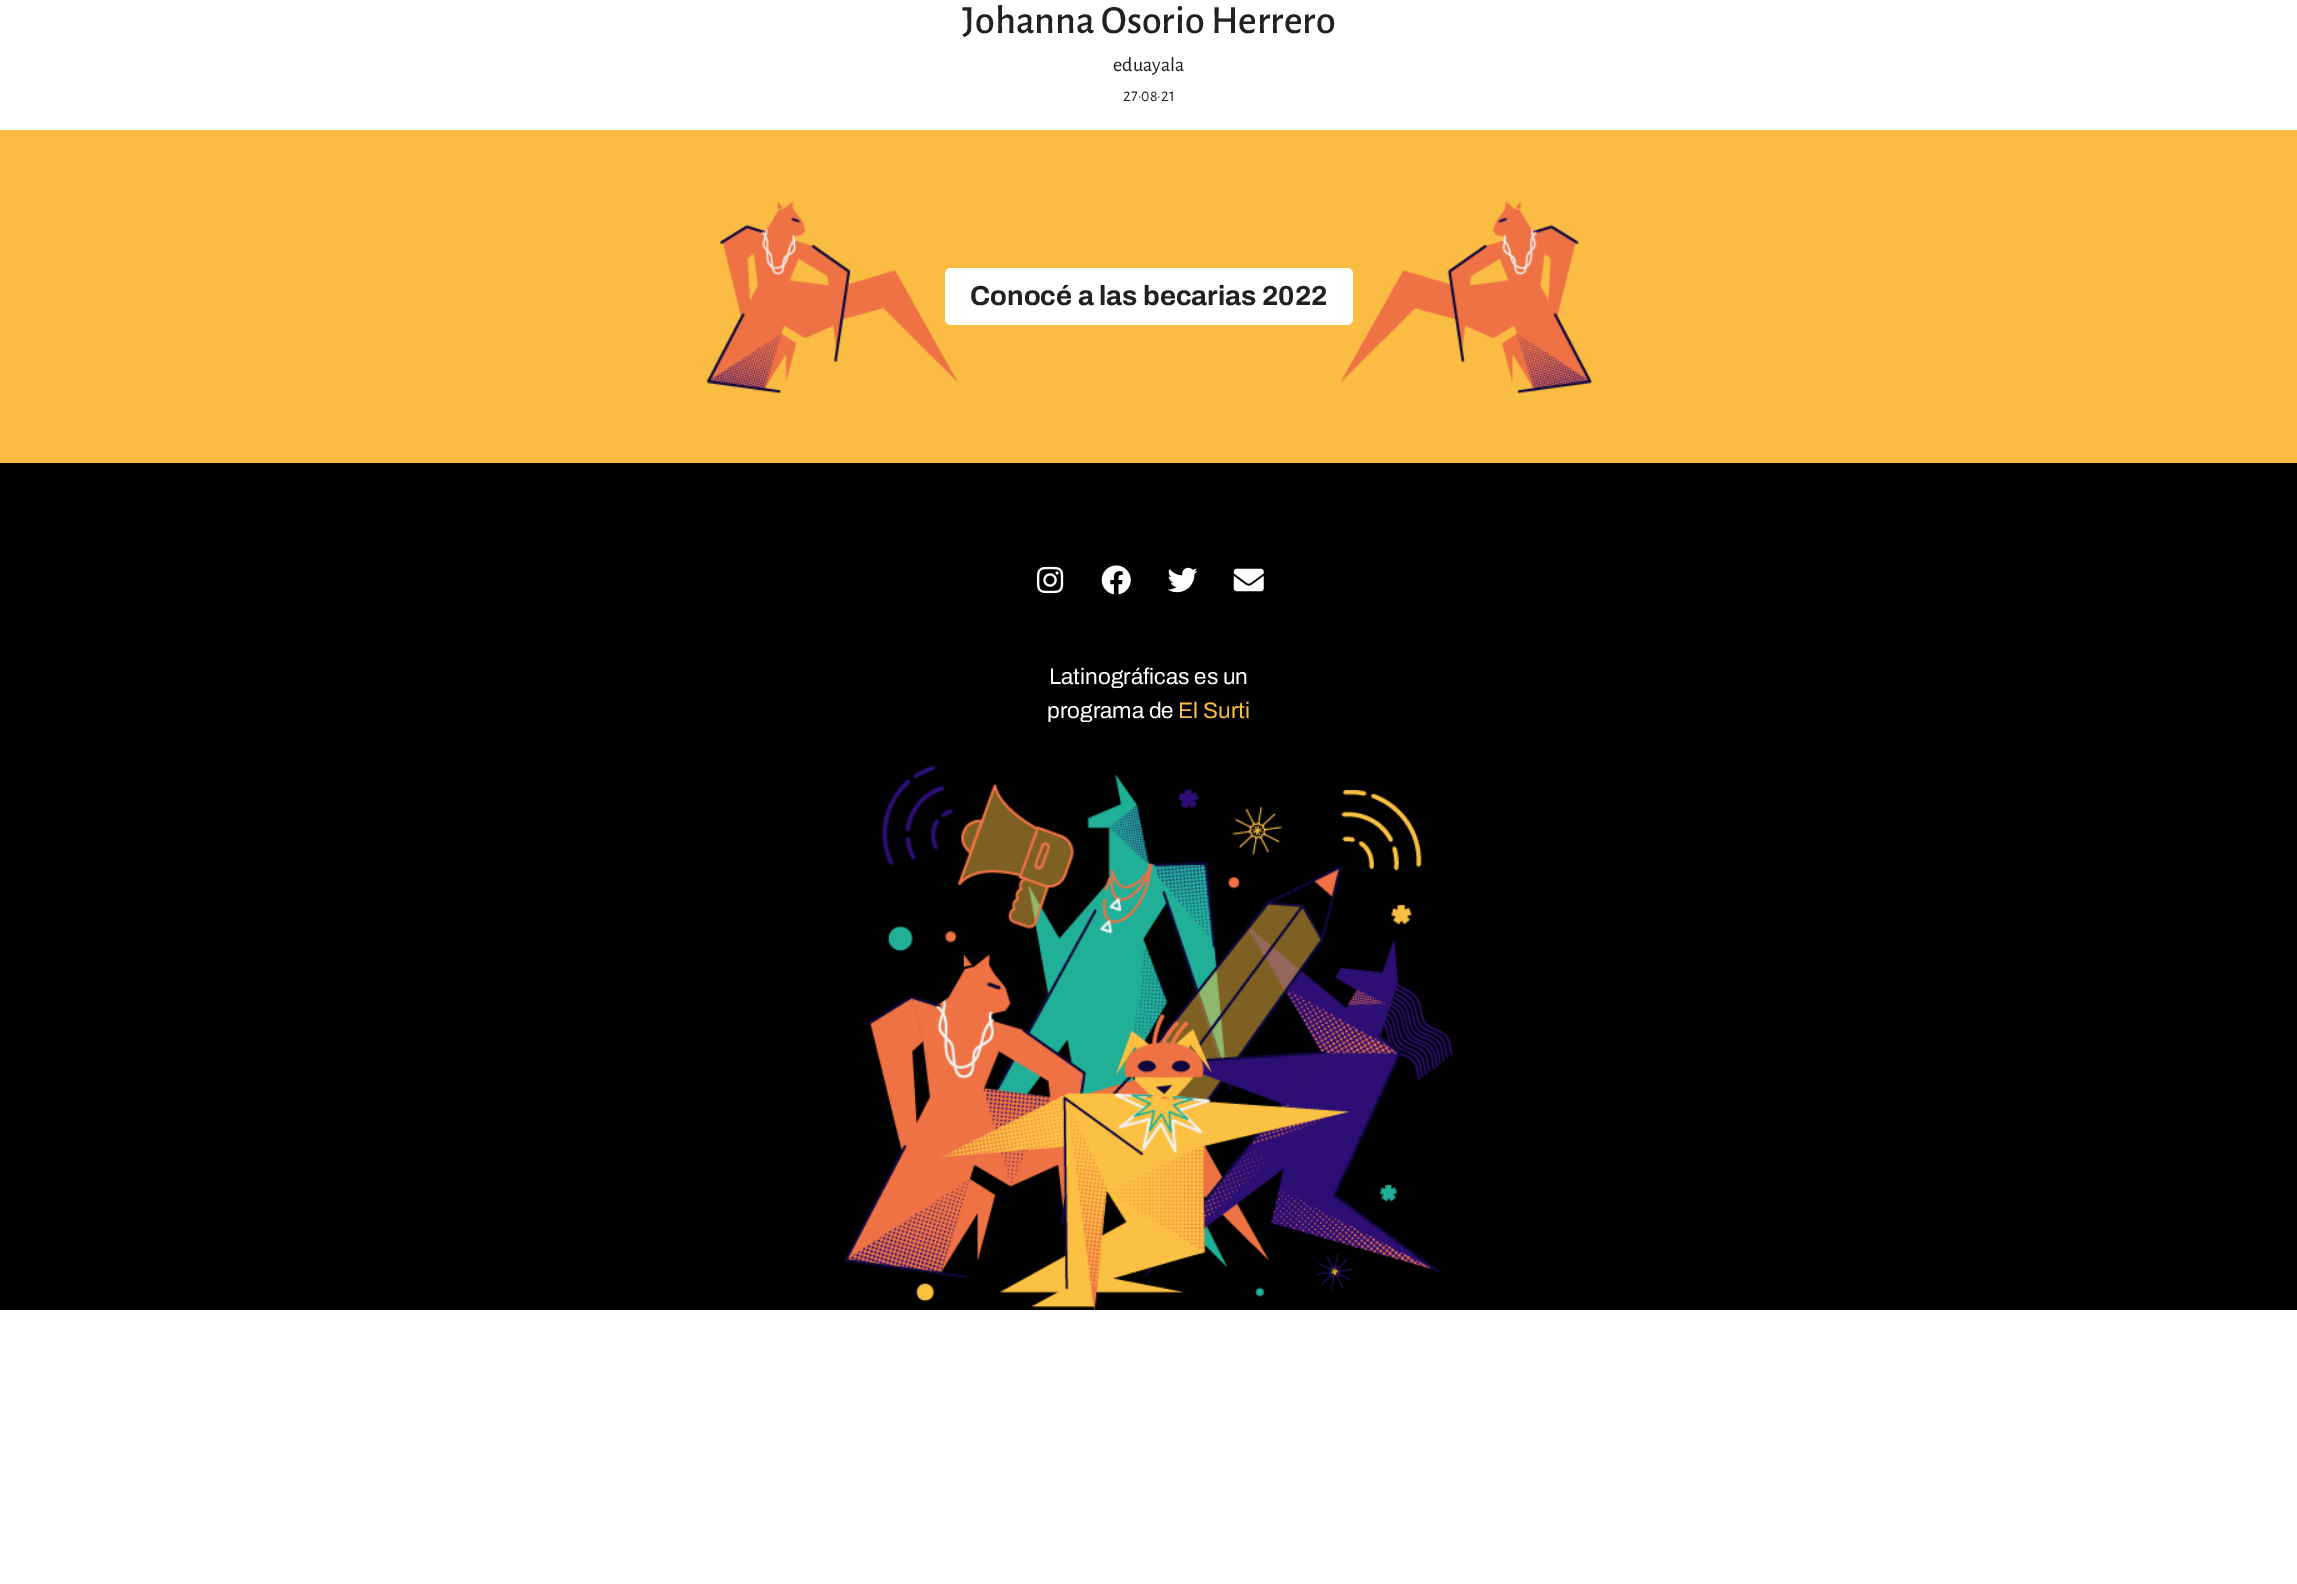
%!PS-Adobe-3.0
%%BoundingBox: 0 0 2297 1584
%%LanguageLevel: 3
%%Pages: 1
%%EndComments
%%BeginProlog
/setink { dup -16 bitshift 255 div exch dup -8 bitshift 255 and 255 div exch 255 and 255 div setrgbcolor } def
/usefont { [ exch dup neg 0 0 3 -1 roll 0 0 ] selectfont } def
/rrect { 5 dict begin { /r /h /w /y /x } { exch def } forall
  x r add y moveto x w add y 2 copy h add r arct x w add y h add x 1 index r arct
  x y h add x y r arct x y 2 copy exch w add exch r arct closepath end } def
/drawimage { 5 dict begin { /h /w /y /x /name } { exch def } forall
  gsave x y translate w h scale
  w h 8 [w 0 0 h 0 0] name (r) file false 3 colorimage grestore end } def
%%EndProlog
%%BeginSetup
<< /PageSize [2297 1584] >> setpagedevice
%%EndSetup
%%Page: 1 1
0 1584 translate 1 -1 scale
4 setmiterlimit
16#FFFFFF setink
0 0 2297 1584 rectfill
/AlegreyaSans-Medium 40 usefont
16#212121 setink
962 33 moveto (Johanna Osorio Herrero) show
/AlegreyaSans-Regular 20 usefont
1113 71 moveto (eduayala) show
/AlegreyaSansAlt-Regular 16 usefont
1123 101 moveto (27·08·21) show
16#FBBC43 setink
0 130 2297 333 rectfill
(img1.raw) 706 201 886 193 drawimage
16#FFFFFF setink
945 268 408 57 6 rrect fill
/Archivo-Bold 27.5 usefont
16#212121 setink
970 305 moveto (Conocé a las becarias 2022) show
16#000000 setink
0 463 2297 847 rectfill
(img2.raw) 843 765 611 545 drawimage
(img3.raw) 1036 566 28 28 drawimage
(img4.raw) 1101 565 30 30 drawimage
(img5.raw) 1167 567 31 26 drawimage
(img6.raw) 1233 568 31 24 drawimage
/Archivo-Regular 22.5 usefont
16#FFFFFF setink
1049 684 moveto (Latinográficas es un) show
1047 718 moveto (programa de) show
16#FBBC43 setink
1178 718 moveto (El Surti) show
showpage
%%EOF
